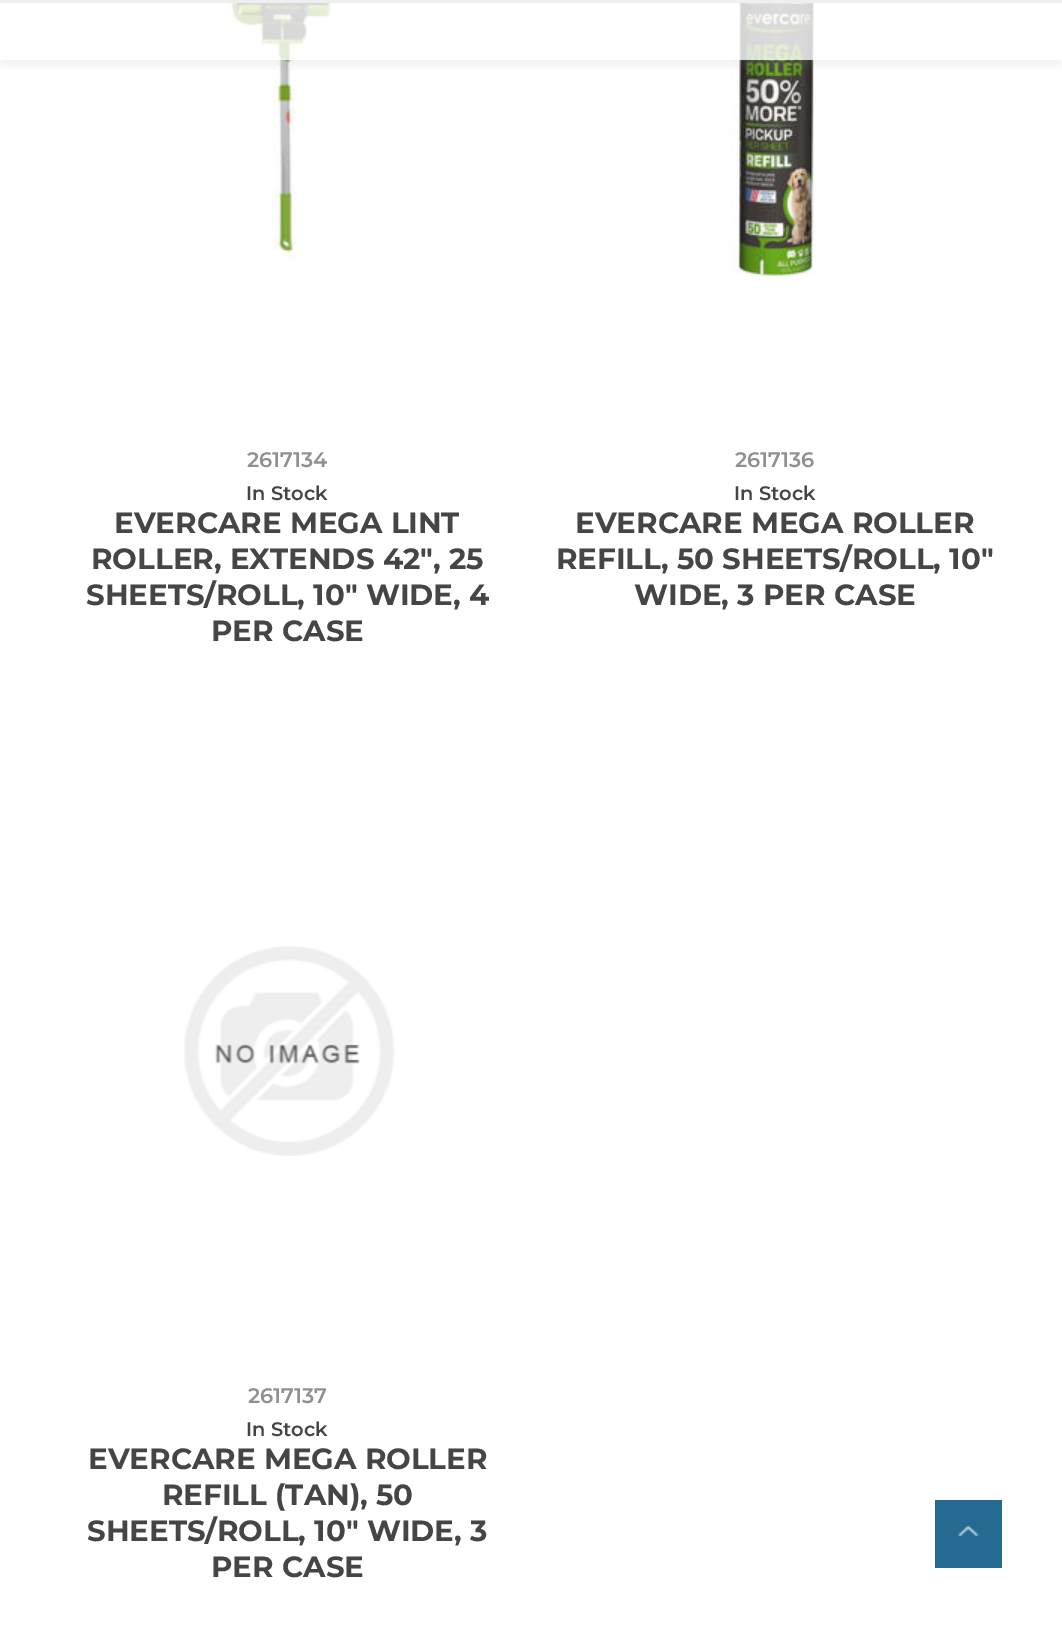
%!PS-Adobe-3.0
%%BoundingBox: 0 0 1062 1627
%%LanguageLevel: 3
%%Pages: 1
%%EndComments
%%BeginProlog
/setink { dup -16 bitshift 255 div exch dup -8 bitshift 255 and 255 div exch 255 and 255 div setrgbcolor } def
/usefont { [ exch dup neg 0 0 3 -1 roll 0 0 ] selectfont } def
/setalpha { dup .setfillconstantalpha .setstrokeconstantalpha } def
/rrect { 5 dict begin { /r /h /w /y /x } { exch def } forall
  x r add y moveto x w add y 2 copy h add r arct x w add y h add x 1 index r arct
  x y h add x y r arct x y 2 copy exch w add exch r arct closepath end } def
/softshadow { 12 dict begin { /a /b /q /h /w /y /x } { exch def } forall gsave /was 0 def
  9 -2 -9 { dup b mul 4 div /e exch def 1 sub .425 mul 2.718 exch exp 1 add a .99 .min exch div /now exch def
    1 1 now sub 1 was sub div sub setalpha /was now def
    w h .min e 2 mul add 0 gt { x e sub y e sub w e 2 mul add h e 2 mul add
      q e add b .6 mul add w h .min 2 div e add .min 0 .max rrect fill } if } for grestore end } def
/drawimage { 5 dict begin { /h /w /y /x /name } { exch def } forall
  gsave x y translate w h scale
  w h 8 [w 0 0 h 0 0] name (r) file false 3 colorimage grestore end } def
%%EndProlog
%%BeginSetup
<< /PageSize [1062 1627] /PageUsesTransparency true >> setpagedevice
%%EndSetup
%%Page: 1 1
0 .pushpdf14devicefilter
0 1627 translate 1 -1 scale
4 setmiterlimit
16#FFFFFF setink
0 0 1062 1627 rectfill
(img1.raw) 224 3 112 259 drawimage
(img2.raw) 729 3 86 277 drawimage
gsave
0 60 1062 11 rectclip
16#969696 setink
0 -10 1062 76 0 4.5 0.13 softshadow
grestore
0.8 setalpha
224 3 591 57 rectfill
1 setalpha
16#EFEFEF setink
0 0 1062 3 rectfill
/Montserrat-SemiBold 21 usefont
16#909090 setink
247 467 moveto (2617134) show
/Montserrat-SemiBold 19.5 usefont
16#454545 setink
246 500 moveto (In Stock) show
/Montserrat-Bold 29.25 usefont
[
    [(EVERCARE MEGA LINT) 114 533]
    [(ROLLER, EXTENDS 42", 25) 91 569]
    [(SHEETS/ROLL, 10" WIDE, 4) 86 605]
    [(PER CASE) 211 641]
] { aload pop moveto show } forall
/Montserrat-SemiBold 21 usefont
16#909090 setink
735 467 moveto (2617136) show
/Montserrat-SemiBold 19.5 usefont
16#454545 setink
734 500 moveto (In Stock) show
/Montserrat-Bold 29.25 usefont
[
    [(EVERCARE MEGA ROLLER) 575 533]
    [(REFILL, 50 SHEETS/ROLL, 10") 556 569]
    [(WIDE, 3 PER CASE) 634 605]
] { aload pop moveto show } forall
(img3.raw) 184 946 211 210 drawimage
/Montserrat-SemiBold 21 usefont
16#909090 setink
248 1403 moveto (2617137) show
/Montserrat-SemiBold 19.5 usefont
16#454545 setink
246 1436 moveto (In Stock) show
/Montserrat-Bold 29.25 usefont
[
    [(EVERCARE MEGA ROLLER) 88 1469]
    [(REFILL \(TAN\), 50) 162 1505]
    [(SHEETS/ROLL, 10" WIDE, 3) 87 1541]
    [(PER CASE) 211 1577]
] { aload pop moveto show } forall
16#266A92 setink
935 1500 67 68 rectfill
(img4.raw) 958 1525 21 11 drawimage
.poppdf14devicefilter showpage
%%EOF
